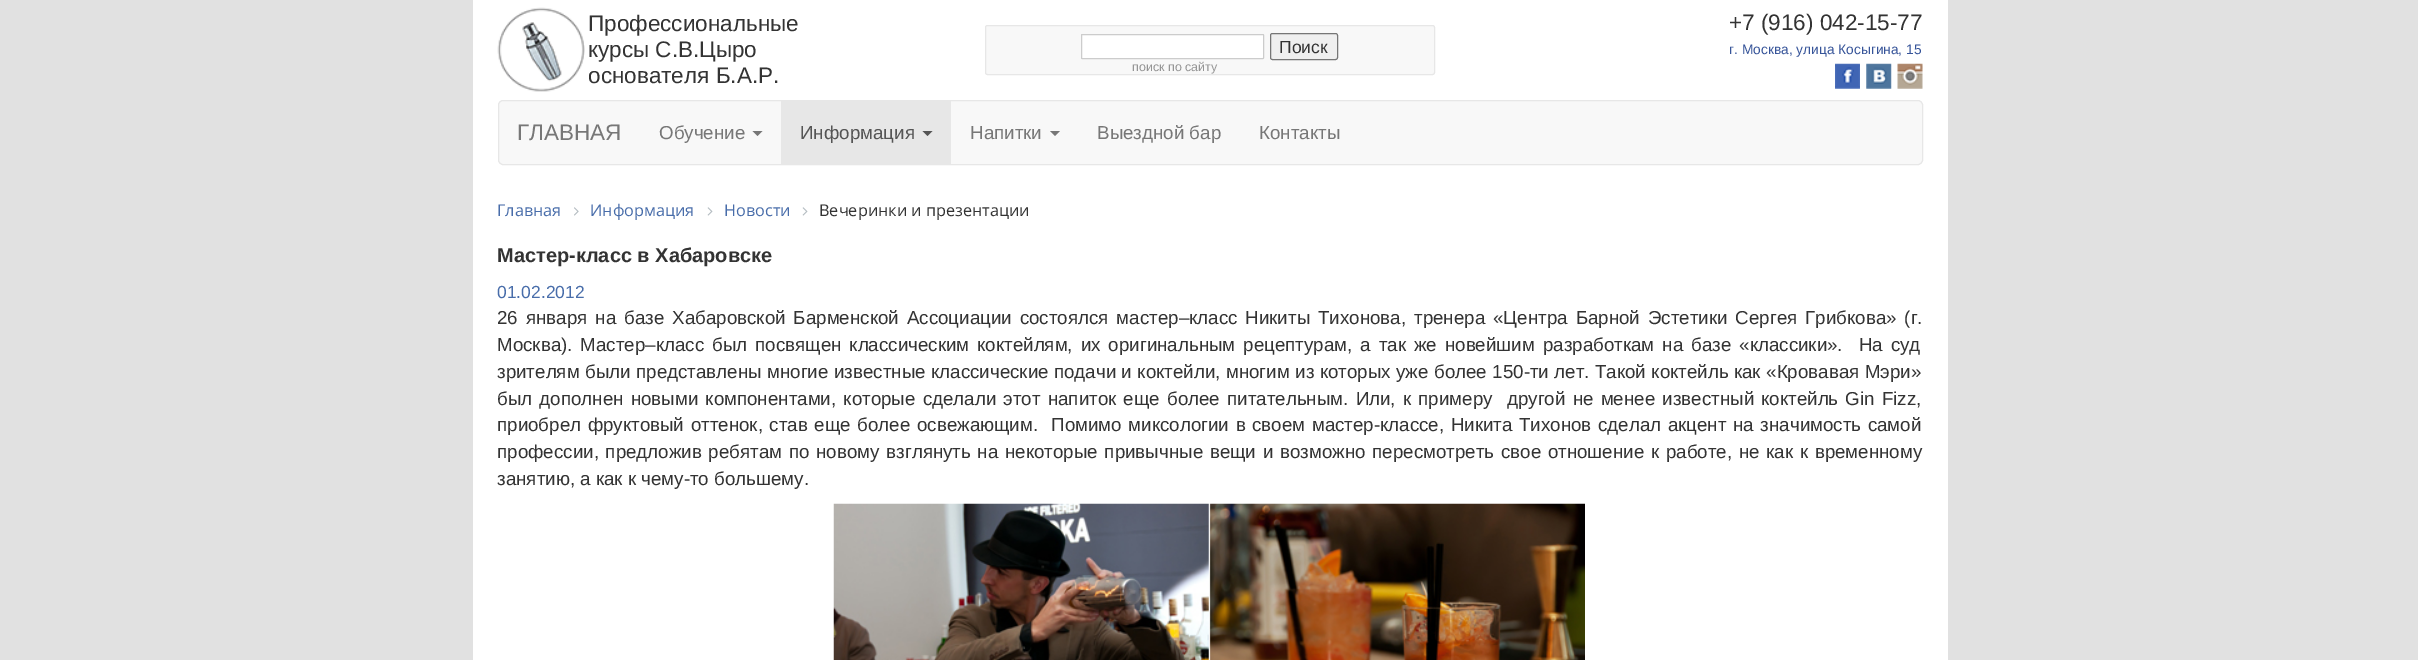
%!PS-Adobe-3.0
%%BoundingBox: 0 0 2418 660
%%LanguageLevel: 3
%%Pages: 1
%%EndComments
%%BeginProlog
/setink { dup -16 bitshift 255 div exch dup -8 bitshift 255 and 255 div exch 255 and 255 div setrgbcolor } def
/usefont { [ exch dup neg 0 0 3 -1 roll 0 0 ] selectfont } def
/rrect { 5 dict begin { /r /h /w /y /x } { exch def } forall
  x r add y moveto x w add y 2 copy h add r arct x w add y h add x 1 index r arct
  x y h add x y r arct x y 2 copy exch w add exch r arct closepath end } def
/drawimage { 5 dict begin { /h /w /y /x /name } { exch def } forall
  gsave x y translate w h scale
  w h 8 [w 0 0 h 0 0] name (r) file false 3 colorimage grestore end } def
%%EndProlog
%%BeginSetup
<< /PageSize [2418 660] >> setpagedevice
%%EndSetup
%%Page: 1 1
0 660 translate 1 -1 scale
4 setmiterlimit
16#E1E1E1 setink
0 0 2418 660 rectfill
16#FFFFFF setink
473 0 1475 660 rectfill
(img1.raw) 497 7 88 85 drawimage
/LiberationSans-Regular 22.5 usefont
16#333333 setink
[
    [(Профессиональные) 588 31]
    [(курсы С.В.Цыро) 588 57]
    [(основателя Б.А.Р.) 588 83]
] { aload pop moveto show } forall
16#F8F8F8 setink
985.5 25.5 449 49 2 rrect gsave fill grestore
16#E7E7E7 setink
stroke
16#FFFFFF setink
1081.5 34.5 182 24 0.5 rrect gsave fill grestore
16#CCCCCC setink
stroke
16#EFEFEF setink
1270.5 33.5 67 26 2 rrect gsave fill grestore
16#767676 setink
stroke
/LiberationSans-Regular 17.5 usefont
16#333333 setink
1279 53 moveto (Поиск) show
/LiberationSans-Regular 12.5 usefont
16#959595 setink
1132 71 moveto (поиск по сайту) show
/LiberationSans-Regular 22.5 usefont
16#333333 setink
1729 30 moveto (+7 \(916\) 042-15-77) show
/LiberationSans-Regular 13.75 usefont
16#365499 setink
1729 54 moveto (г. Москва, улица Косыгина, 15) show
(img2.raw) 1835 63 25 26 drawimage
(img3.raw) 1866 63 26 26 drawimage
(img4.raw) 1897 63 26 26 drawimage
16#F8F8F8 setink
498.5 100.5 1424 64 4.5 rrect gsave fill grestore
16#E7E7E7 setink
stroke
/LiberationSans-Regular 22.5 usefont
16#777777 setink
517 140 moveto (ГЛАВНАЯ) show
/LiberationSans-Regular 18.75 usefont
659 139 moveto (Обучение) show
752.5 131 moveto 762.5 131 lineto 757.5 136 lineto closepath fill
16#E7E7E7 setink
781 101 170 63 rectfill
16#555555 setink
800 139 moveto (Информация) show
922.5 131 moveto 932.5 131 lineto 927.5 136 lineto closepath fill
16#777777 setink
970 139 moveto (Напитки) show
1050 131 moveto 1060 131 lineto 1055 136 lineto closepath fill
1097 139 moveto (Выездной бар) show
1259 139 moveto (Контакты) show
/OpenSans-Regular 16.25 usefont
16#486DAA setink
497 216 moveto (Главная) show
(img5.raw) 574 207 5 9 drawimage
590 216 moveto (Информация) show
(img6.raw) 707 207 6 9 drawimage
724 216 moveto (Новости) show
(img6.raw) 802 207 6 9 drawimage
16#333333 setink
819 216 moveto (Вечеринки и презентации) show
/LiberationSans-Bold 20 usefont
497 262 moveto (Мастер-класс в Хабаровске) show
/LiberationSans-Regular 17.5 usefont
16#486DAA setink
497 298 moveto (01.02.2012) show
/LiberationSans-Regular 18.75 usefont
16#333333 setink
497 324 moveto 2.75 0 32 (26 января на базе Хабаровской Барменской Ассоциации состоялся мастер–класс Никиты Тихонова, тренера «Центра Барной Эстетики Сергея Грибкова» \(г.) widthshow
497 351 moveto 2.75 0 32 (Москва\). Мастер–класс был посвящен классическим коктейлям, их оригинальным рецептурам, а так же новейшим разработкам на базе «классики».  На суд) widthshow
497 378 moveto 0.25 0 32 (зрителям были представлены многие известные классические подачи и коктейли, многим из которых уже более 150-ти лет. Такой коктейль как «Кровавая Мэри») widthshow
497 405 moveto 2 0 32 (был дополнен новыми компонентами, которые сделали этот напиток еще более питательным. Или, к примеру  другой не менее известный коктейль Gin Fizz,) widthshow
497 431 moveto 1.4 0 32 (приобрел фруктовый оттенок, став еще более освежающим.  Помимо миксологии в своем мастер-классе, Никита Тихонов сделал акцент на значимость самой) widthshow
497 458 moveto 1.5 0 32 (профессии, предложив ребятам по новому взглянуть на некоторые привычные вещи и возможно пересмотреть свое отношение к работе, не как к временному) widthshow
497 485 moveto (занятию, а как к чему-то большему.) show
(img7.raw) 833 503 752 157 drawimage
showpage
%%EOF
